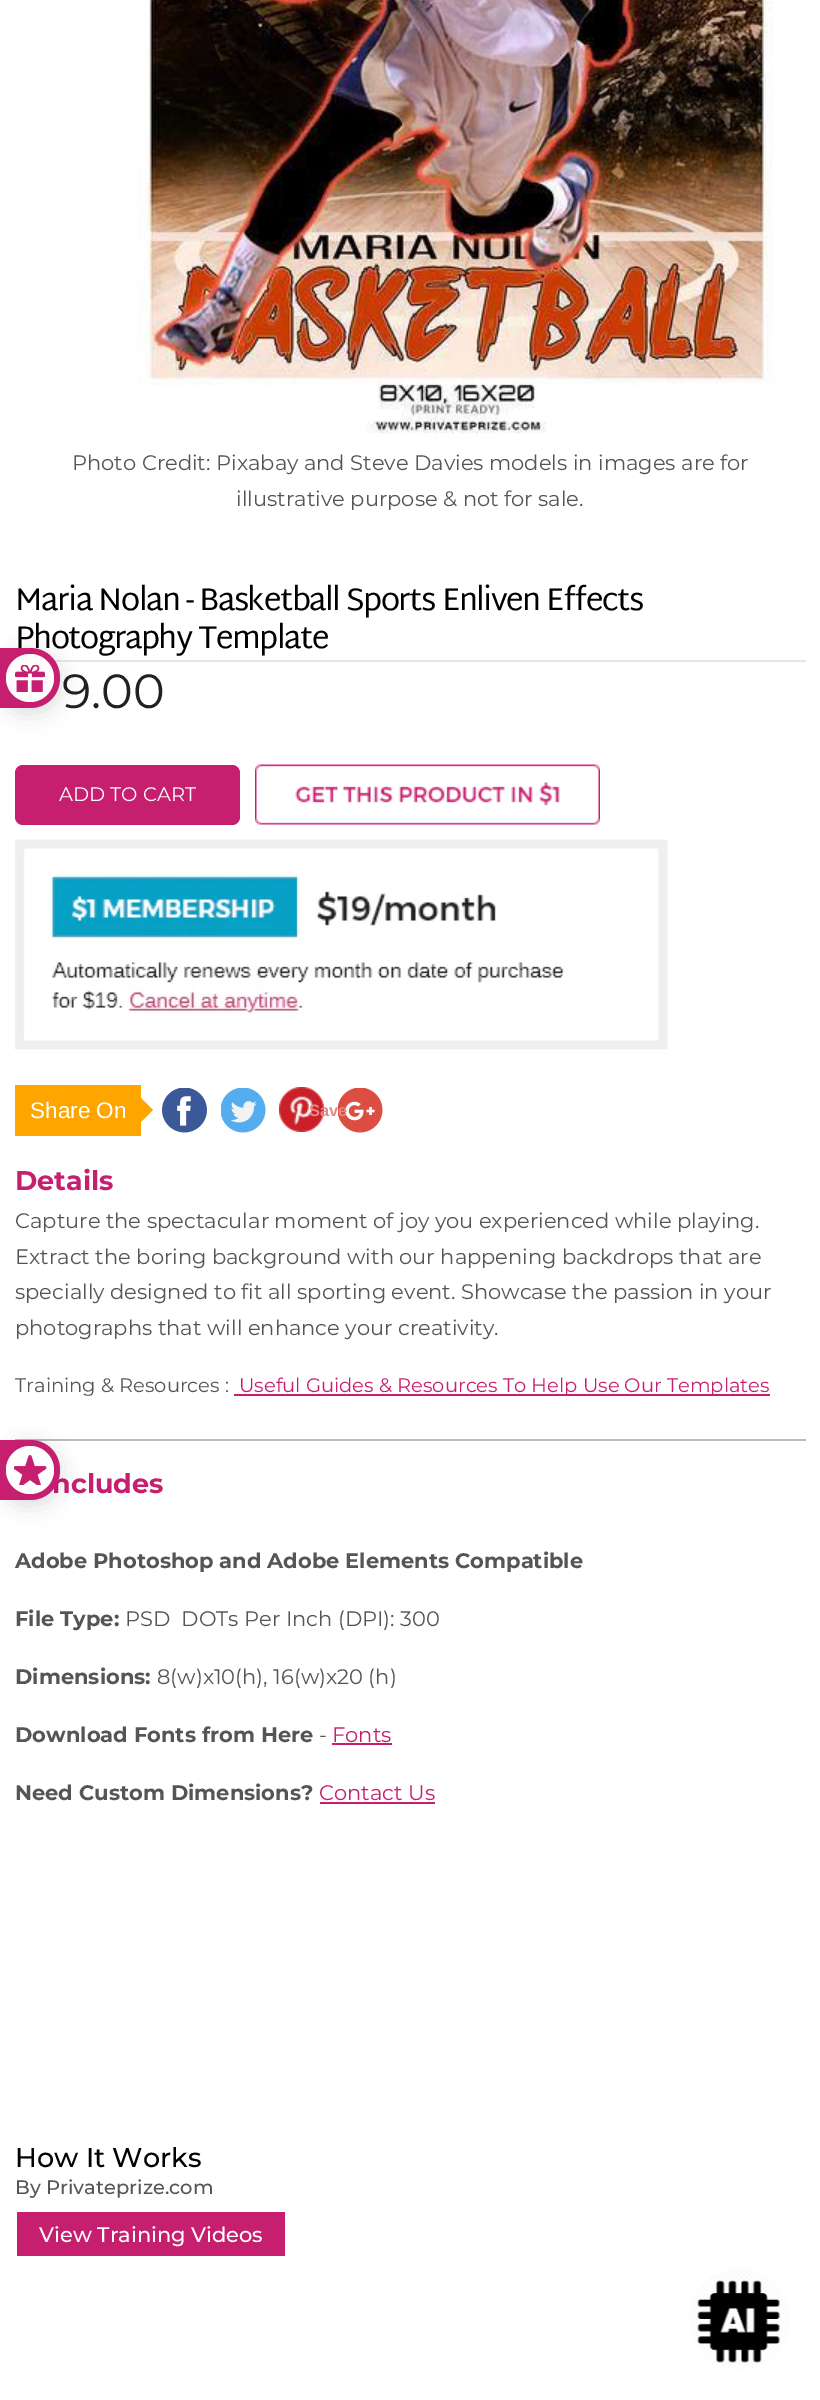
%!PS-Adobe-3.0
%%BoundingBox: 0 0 820 2400
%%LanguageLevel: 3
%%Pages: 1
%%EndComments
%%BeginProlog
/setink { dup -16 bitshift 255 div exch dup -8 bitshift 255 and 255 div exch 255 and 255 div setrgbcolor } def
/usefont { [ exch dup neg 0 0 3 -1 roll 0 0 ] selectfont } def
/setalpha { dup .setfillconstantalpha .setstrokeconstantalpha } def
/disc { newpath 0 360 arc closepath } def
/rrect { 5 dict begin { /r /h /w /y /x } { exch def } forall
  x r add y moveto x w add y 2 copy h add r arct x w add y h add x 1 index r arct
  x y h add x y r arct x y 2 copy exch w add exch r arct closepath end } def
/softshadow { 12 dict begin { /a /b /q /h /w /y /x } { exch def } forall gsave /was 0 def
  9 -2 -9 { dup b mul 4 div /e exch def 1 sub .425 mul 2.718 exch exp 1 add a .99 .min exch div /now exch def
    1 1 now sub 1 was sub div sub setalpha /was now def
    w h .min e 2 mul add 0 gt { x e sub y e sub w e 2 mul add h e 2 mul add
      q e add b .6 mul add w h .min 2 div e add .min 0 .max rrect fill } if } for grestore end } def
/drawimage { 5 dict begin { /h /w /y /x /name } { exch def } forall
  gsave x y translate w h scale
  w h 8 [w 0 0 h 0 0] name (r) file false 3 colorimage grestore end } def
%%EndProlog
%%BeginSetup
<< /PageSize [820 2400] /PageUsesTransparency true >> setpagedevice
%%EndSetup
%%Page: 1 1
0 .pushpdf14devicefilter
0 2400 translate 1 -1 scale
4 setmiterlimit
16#FFFFFF setink
0 0 820 2400 rectfill
(img1.raw) 138 0 636 434 drawimage
/Montserrat-Regular 21 usefont
16#555555 setink
72 470 moveto (Photo Credit: Pixabay and Steve Davies models in images are for) show
236 506 moveto (illustrative purpose & not for sale.) show
16#E7E7E7 setink
54 660 752 2 rectfill
/MartelSans-Regular 31.5 usefont
16#000000 setink
15 610 moveto -1.5 0 (Maria Nolan - Basketball Sports Enliven Effects) ashow
15 648 moveto -1.5 0 (Photography Template) ashow
/Montserrat-Regular 48 usefont
16#212121 setink
62 708 moveto (9.00) show
16#C61F6F setink
15 765 225 60 8 rrect fill
/Montserrat-Regular 19.5 usefont
16#FFFFFF setink
59 801 moveto (ADD TO CART) show
(img2.raw) 255 764 345 61 drawimage
(img3.raw) 15 839 653 211 drawimage
16#FFA500 setink
15 1085 126 51 rectfill
/LiberationSans-Regular 22.5 usefont
16#FFFFFF setink
30 1118 moveto (Share On) show
16#FFA500 setink
141 1122 moveto 141 1098 lineto 153 1110 lineto closepath fill
(img4.raw) 162 1088 45 45 drawimage
(img5.raw) 221 1088 45 45 drawimage
(img6.raw) 279 1087 45 45 drawimage
(img7.raw) 338 1088 45 45 drawimage
/LiberationSans-Bold 16.5 usefont
16#E48888 setink
309 1116 moveto (Save) show
/Montserrat-Bold 27 usefont
16#C61F6F setink
15 1190 moveto (Details) show
/Montserrat-Regular 21 usefont
16#555555 setink
[
    [(Capture the spectacular moment of joy you experienced while playing.) 15 1228]
    [(Extract the boring background with our happening backdrops that are) 15 1264]
    [(specially designed to fit all sporting event. Showcase the passion in your) 15 1299]
    [(photographs that will enhance your creativity.) 15 1335]
] { aload pop moveto show } forall
/Montserrat-Regular 19.5 usefont
15 1392 moveto (Training & Resources :) show
16#C61F6F setink
234 1394 536 2 rectfill
239 1392 moveto (Useful Guides & Resources To Help Use Our Templates) show
16#BCBCBC setink
15 1439 791 2 rectfill
/Montserrat-Bold 27 usefont
16#C61F6F setink
52 1493 moveto (ncludes) show
/Montserrat-Bold 21 usefont
16#555555 setink
15 1568 moveto (Adobe Photoshop and Adobe Elements Compatible) show
15 1626 moveto (File Type:) show
/Montserrat-Regular 21 usefont
125 1626 moveto (PSD  DOTs Per Inch \(DPI\): 300) show
/Montserrat-Bold 21 usefont
15 1684 moveto (Dimensions:) show
/Montserrat-Regular 21 usefont
157 1684 moveto (8\(w\)x10\(h\), 16\(w\)x20 \(h\)) show
/Montserrat-Bold 21 usefont
15 1742 moveto (Download Fonts from Here) show
/Montserrat-Regular 21 usefont
319 1742 moveto (-) show
16#C61F6F setink
332 1742 moveto (Fonts) show
332 1743 60 2 rectfill
/Montserrat-Bold 21 usefont
16#555555 setink
15 1800 moveto (Need Custom Dimensions?) show
/Montserrat-Regular 21 usefont
16#C61F6F setink
319 1800 moveto (Contact Us) show
320 1802 115 2 rectfill
/Montserrat-Thin 27 usefont
16#000000 setink
15 2167 moveto (How It Works) show
/Montserrat-Thin 19.5 usefont
16#555555 setink
15 2194 moveto (By Privateprize.com) show
16#C61F6F setink
17 2212 268 44 rectfill
/Montserrat-Thin 21 usefont
16#FFFFFF setink
39 2242 moveto (View Training Videos) show
16#112233 setink
0 653 60 60 30 10.5 0.16 softshadow
16#C61F6F setink
60 678 moveto 60 695 47 708 30 708 curveto 0 708 lineto 0 648 lineto 30 648 lineto 47 648 60 661 60 678 curveto closepath fill
16#FFFCFE setink
30 678 24 disc fill
(img8.raw) 15 665 30 27 drawimage
16#112233 setink
0 1445 60 60 30 10.5 0.16 softshadow
16#C61F6F setink
60 1470 moveto 60 1487 47 1500 30 1500 curveto 0 1500 lineto 0 1440 lineto 30 1440 lineto 47 1440 60 1453 60 1470 curveto closepath fill
16#FFFFFF setink
30 1470 24 disc fill
(img9.raw) 14 1455 33 30 drawimage
(img10.raw) 689 2268 101 102 drawimage
.poppdf14devicefilter showpage
%%EOF
